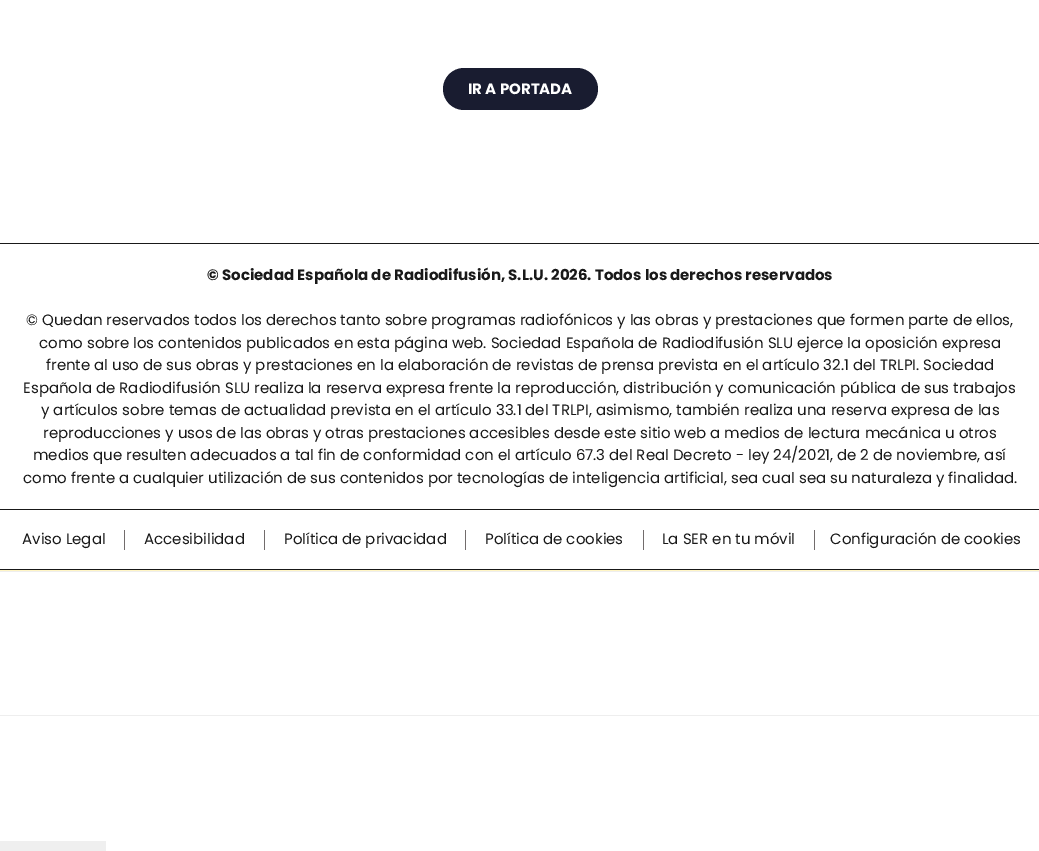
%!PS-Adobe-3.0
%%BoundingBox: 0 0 1039 851
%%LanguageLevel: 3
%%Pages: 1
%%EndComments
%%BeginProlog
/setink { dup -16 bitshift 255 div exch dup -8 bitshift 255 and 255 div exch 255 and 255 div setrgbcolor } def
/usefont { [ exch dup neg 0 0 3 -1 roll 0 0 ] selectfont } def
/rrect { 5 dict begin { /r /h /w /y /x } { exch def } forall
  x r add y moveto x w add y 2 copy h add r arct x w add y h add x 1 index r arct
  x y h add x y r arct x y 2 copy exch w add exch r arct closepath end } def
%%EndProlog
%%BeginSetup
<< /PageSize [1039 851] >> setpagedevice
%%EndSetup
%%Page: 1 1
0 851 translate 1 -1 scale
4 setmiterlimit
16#FFFFFF setink
0 0 1039 851 rectfill
16#191C30 setink
443 68 155 42 21 rrect fill
/Poppins-Bold 15 usefont
16#FFFFFF setink
468 94 moveto (IR A PORTADA) show
16#191919 setink
0 243 1039 1 rectfill
0 509 1039 1 rectfill
207 280 moveto (© Sociedad Española de Radiodifusión, S.L.U. 2026. Todos los derechos reservados) show
/Poppins-Regular 15 usefont
[
    [(© Quedan reservados todos los derechos tanto sobre programas radiofónicos y las obras y prestaciones que formen parte de ellos,) 26 325]
    [(como sobre los contenidos publicados en esta página web. Sociedad Española de Radiodifusión SLU ejerce la oposición expresa) 39 348]
    [(frente al uso de sus obras y prestaciones en la elaboración de revistas de prensa prevista en el artículo 32.1 del TRLPI. Sociedad) 46 370]
    [(Española de Radiodifusión SLU realiza la reserva expresa frente la reproducción, distribución y comunicación pública de sus trabajos) 23 393]
    [(y artículos sobre temas de actualidad prevista en el artículo 33.1 del TRLPI, asimismo, también realiza una reserva expresa de las) 41 415]
    [(reproducciones y usos de las obras y otras prestaciones accesibles desde este sitio web a medios de lectura mecánica u otros) 43 438]
    [(medios que resulten adecuados a tal fin de conformidad con el artículo 67.3 del Real Decreto - ley 24/2021, de 2 de noviembre, así) 33 460]
    [(como frente a cualquier utilización de sus contenidos por tecnologías de inteligencia artificial, sea cual sea su naturaleza y finalidad.) 23 483]
] { aload pop moveto show } forall
0 569 1039 1 rectfill
16#726C6C setink
124 530 1 20 rectfill
16#191919 setink
22 544 moveto (Aviso Legal) show
16#726C6C setink
264 530 1 20 rectfill
16#191919 setink
144 544 moveto (Accesibilidad) show
16#726C6C setink
465 530 1 20 rectfill
16#191919 setink
284 544 moveto (Política de privacidad) show
16#726C6C setink
643 530 1 20 rectfill
16#191919 setink
485 544 moveto (Política de cookies) show
16#726C6C setink
814 530 1 20 rectfill
16#191919 setink
662 544 moveto (La SER en tu móvil) show
830 544 moveto (Configuración de cookies) show
[
    [0 570 1039 1 16#FFF5C5]
    [0 571 1039 1 16#EEEEEE]
    [0 715 1039 1 16#EEEEEE]
    [0 841 106 10 16#EFEFEF]
] { aload pop setink rectfill } forall
showpage
%%EOF
